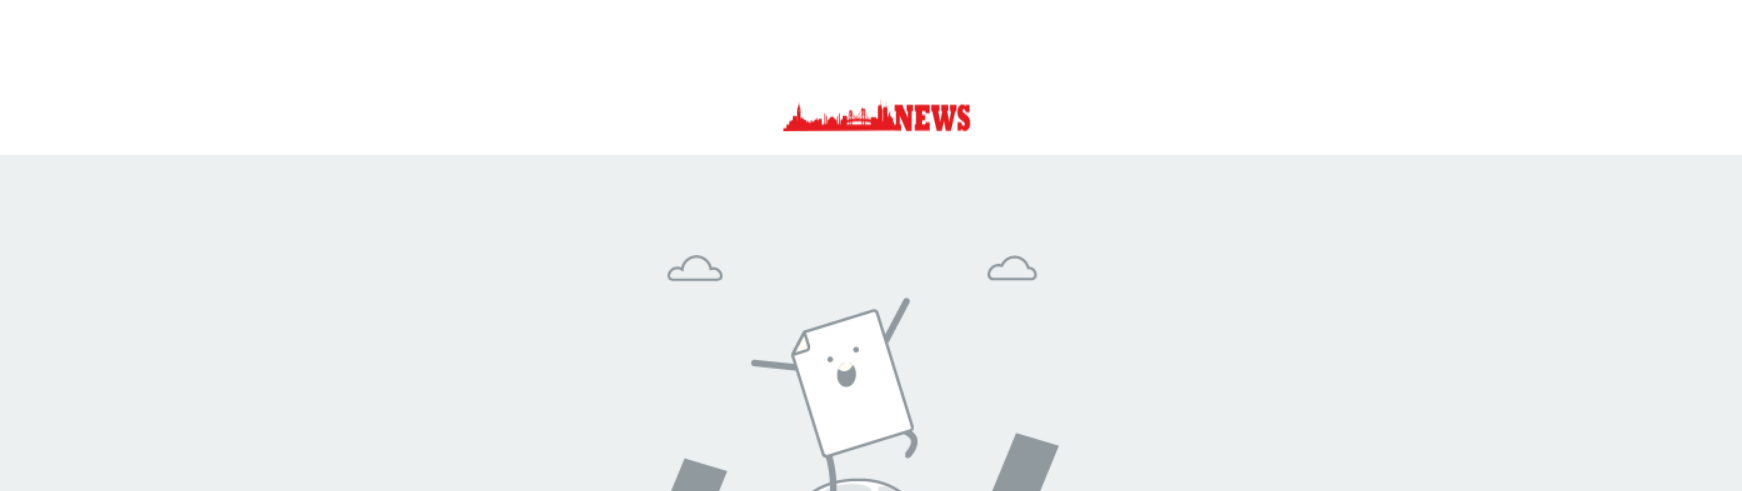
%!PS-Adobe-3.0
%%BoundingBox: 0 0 1742 491
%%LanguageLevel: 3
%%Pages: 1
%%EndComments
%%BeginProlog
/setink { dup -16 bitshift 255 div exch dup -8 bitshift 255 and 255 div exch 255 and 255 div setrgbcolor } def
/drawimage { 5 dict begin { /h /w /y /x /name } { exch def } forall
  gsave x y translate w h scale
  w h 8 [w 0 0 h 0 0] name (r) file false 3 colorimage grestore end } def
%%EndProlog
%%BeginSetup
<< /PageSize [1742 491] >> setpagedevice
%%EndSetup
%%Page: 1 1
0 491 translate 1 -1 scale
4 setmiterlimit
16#ECF0F1 setink
0 0 1742 491 rectfill
16#FFFFFF setink
0 0 1742 155 rectfill
(img1.raw) 782 99 189 33 drawimage
(img2.raw) 667 255 392 236 drawimage
showpage
%%EOF
